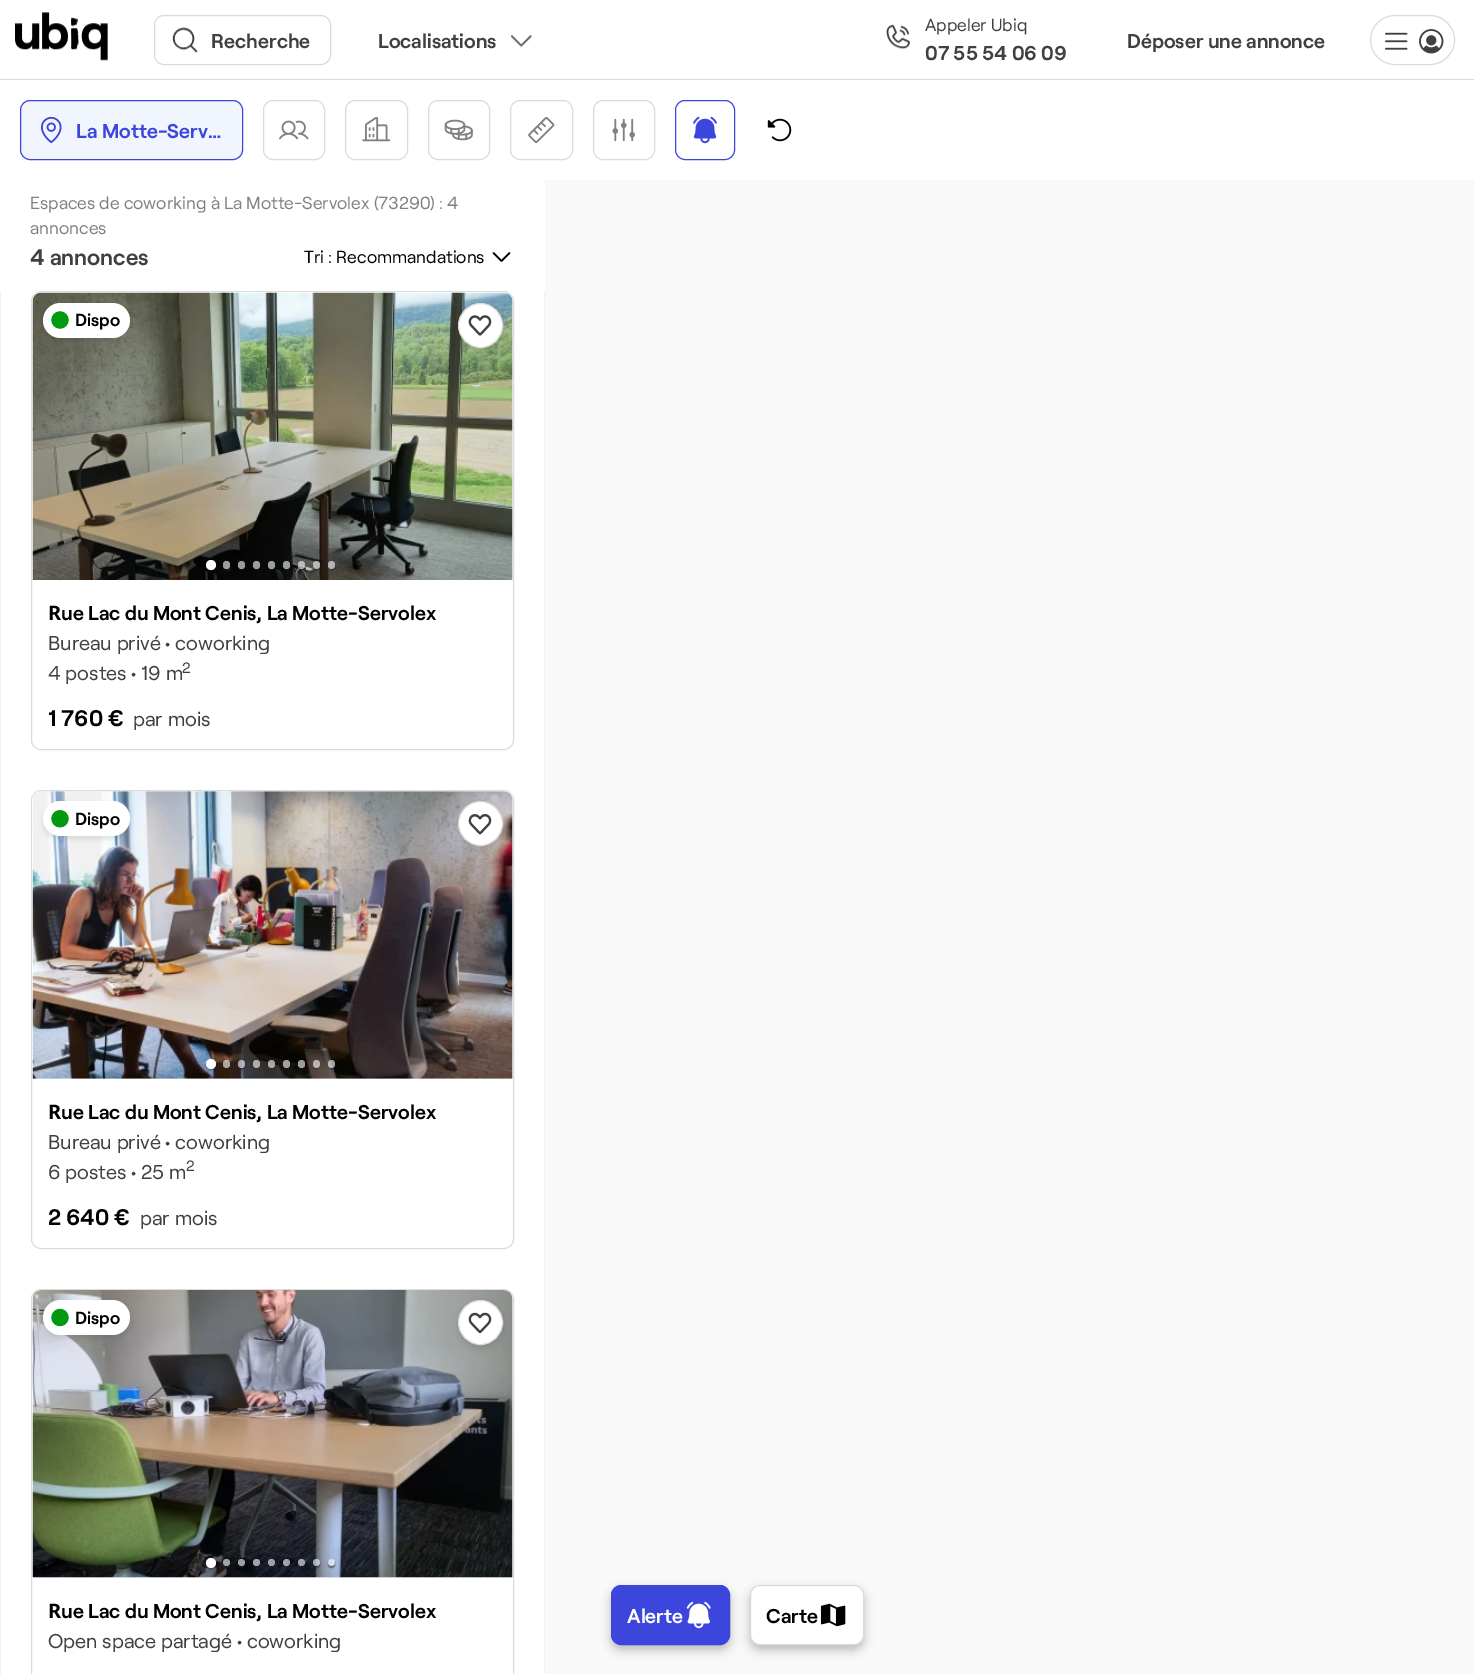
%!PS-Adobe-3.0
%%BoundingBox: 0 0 1474 1674
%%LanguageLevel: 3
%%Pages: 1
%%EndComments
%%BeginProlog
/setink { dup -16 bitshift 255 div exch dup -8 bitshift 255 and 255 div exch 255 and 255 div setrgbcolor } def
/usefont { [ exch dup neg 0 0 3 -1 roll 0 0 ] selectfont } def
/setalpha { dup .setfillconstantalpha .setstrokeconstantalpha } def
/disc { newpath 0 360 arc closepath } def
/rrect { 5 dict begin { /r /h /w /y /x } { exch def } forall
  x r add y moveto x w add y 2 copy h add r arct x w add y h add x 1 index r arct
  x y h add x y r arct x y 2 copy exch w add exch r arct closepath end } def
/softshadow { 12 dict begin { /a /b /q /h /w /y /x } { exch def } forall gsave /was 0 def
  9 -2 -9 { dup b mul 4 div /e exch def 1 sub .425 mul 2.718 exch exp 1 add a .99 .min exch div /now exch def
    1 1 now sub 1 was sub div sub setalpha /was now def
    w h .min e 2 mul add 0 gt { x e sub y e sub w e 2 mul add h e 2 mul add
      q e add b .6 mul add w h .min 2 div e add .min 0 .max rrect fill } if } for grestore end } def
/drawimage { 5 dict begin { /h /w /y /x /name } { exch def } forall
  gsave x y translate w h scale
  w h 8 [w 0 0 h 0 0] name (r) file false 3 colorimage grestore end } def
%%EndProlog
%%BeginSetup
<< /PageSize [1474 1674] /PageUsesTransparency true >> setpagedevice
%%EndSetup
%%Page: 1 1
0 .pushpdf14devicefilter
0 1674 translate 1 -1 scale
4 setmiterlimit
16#FFFFFF setink
0 0 1474 1674 rectfill
16#DBDBDB setink
0 79 1474 1 rectfill
(img1.raw) 15 12 93 49 drawimage
154.5 15.5 176 49 9.5 rrect stroke
(img2.raw) 172 27 26 26 drawimage
/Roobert-SemiBold 20 usefont
16#404040 setink
211 48 moveto (Recherche) show
378 48 moveto (Localisations) show
(img3.raw) 511 35 21 13 drawimage
(img4.raw) 886 24 24 26 drawimage
/Roobert-Regular 17.5 usefont
925 31 moveto (Appeler Ubiq) show
/Roobert-SemiBold 20 usefont
925 60 moveto (07 55 54 06 09) show
1127 48 moveto (Déposer une annonce) show
16#DBDBDB setink
1370.5 15.5 84 49 24.5 rrect stroke
(img5.raw) 1385 32 23 18 drawimage
(img6.raw) 1419 29 25 25 drawimage
16#F1F5FD setink
20.5 100.5 222 59 9.5 rrect gsave fill grestore
16#3C46DC setink
stroke
(img7.raw) 40 116 22 28 drawimage
76 138 moveto (La Motte-Serv…) show
16#DBDBDB setink
263.5 100.5 61 59 9.5 rrect stroke
(img8.raw) 279 120 30 20 drawimage
345.5 100.5 62 59 9.5 rrect stroke
(img9.raw) 362 116 29 26 drawimage
428.5 100.5 61 59 9.5 rrect stroke
(img10.raw) 444 119 29 22 drawimage
510.5 100.5 62 59 9.5 rrect stroke
(img11.raw) 528 116 27 28 drawimage
593.5 100.5 61 59 9.5 rrect stroke
(img12.raw) 612 118 23 24 drawimage
16#3C46DC setink
675.5 100.5 59 59 9.5 rrect stroke
(img13.raw) 693 116 24 28 drawimage
(img14.raw) 767 118 25 24 drawimage
16#F9F9FA setink
545 180 929 1494 rectfill
/Roobert-Regular 17.5 usefont
16#808080 setink
30 209 moveto (Espaces de coworking à La Motte-Servolex \(73290\) : 4) show
30 234 moveto (annonces) show
/Roobert-SemiBold 22.5 usefont
16#404040 setink
30 265 moveto (4 annonces) show
/Roobert-Regular 17.5 usefont
16#000000 setink
304 263 moveto (Tri : Recommandations) show
1.6 setlinewidth
1 setlinecap
1 setlinejoin
509.5 253 moveto 501.5 261 lineto 493.5 253 lineto stroke
16#F0F0F0 setink
544 291 1 1383 rectfill
0 291 1 1383 rectfill
16#DBDBDB setink
1 setlinewidth
0 setlinecap
0 setlinejoin
31.5 291.5 482 458 9.5 rrect stroke
16#F0F0F0 setink
42 293 moveto 504 293 lineto 509 293 513 297 513 302 curveto 513 580 lineto 33 580 lineto 33 302 lineto 33 297 37 293 42 293 curveto closepath fill
(img15.raw) 32 292 481 288 drawimage
16#1A2035 setink
206 561 10 10 5 0.5 0.5 softshadow
16#FFFFFF setink
211 565 5 disc fill
gsave
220 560 moveto 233 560 lineto 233 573 lineto 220 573 lineto closepath 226.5 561 moveto 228.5 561 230 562.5 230 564.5 curveto 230 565.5 lineto 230 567.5 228.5 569 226.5 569 curveto 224.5 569 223 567.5 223 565.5 curveto 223 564.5 lineto 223 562.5 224.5 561 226.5 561 curveto closepath eoclip newpath
16#1A2035 setink
223 563 7 7 3.5 0.5 0.5 softshadow
grestore
0.6 setalpha
223 561 7 8 3.5 rrect fill
gsave
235 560 moveto 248 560 lineto 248 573 lineto 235 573 lineto closepath 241.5 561 moveto 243.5 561 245 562.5 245 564.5 curveto 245 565.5 lineto 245 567.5 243.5 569 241.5 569 curveto 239.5 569 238 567.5 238 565.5 curveto 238 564.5 lineto 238 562.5 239.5 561 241.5 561 curveto closepath eoclip newpath
1 setalpha
16#1A2035 setink
238 563 7 7 3.5 0.5 0.5 softshadow
grestore
238 561 7 8 3.5 rrect fill
gsave
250 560 moveto 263 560 lineto 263 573 lineto 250 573 lineto closepath 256.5 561 moveto 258.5 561 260 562.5 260 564.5 curveto 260 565.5 lineto 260 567.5 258.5 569 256.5 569 curveto 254.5 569 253 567.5 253 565.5 curveto 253 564.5 lineto 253 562.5 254.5 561 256.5 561 curveto closepath eoclip newpath
1 setalpha
16#1A2035 setink
253 563 7 7 3.5 0.5 0.5 softshadow
grestore
253 561 7 8 3.5 rrect fill
gsave
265 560 moveto 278 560 lineto 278 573 lineto 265 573 lineto closepath 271.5 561 moveto 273.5 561 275 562.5 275 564.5 curveto 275 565.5 lineto 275 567.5 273.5 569 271.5 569 curveto 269.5 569 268 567.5 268 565.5 curveto 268 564.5 lineto 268 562.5 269.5 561 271.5 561 curveto closepath eoclip newpath
1 setalpha
16#1A2035 setink
268 563 7 7 3.5 0.5 0.5 softshadow
grestore
268 561 7 8 3.5 rrect fill
gsave
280 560 moveto 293 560 lineto 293 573 lineto 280 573 lineto closepath 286.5 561 moveto 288.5 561 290 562.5 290 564.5 curveto 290 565.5 lineto 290 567.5 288.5 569 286.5 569 curveto 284.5 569 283 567.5 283 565.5 curveto 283 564.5 lineto 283 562.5 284.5 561 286.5 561 curveto closepath eoclip newpath
1 setalpha
16#1A2035 setink
283 563 7 7 3.5 0.5 0.5 softshadow
grestore
283 561 7 8 3.5 rrect fill
gsave
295 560 moveto 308 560 lineto 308 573 lineto 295 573 lineto closepath 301.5 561 moveto 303.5 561 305 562.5 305 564.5 curveto 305 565.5 lineto 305 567.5 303.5 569 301.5 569 curveto 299.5 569 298 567.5 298 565.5 curveto 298 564.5 lineto 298 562.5 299.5 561 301.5 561 curveto closepath eoclip newpath
1 setalpha
16#1A2035 setink
298 563 7 7 3.5 0.5 0.5 softshadow
grestore
298 561 7 8 3.5 rrect fill
gsave
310 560 moveto 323 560 lineto 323 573 lineto 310 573 lineto closepath 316.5 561 moveto 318.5 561 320 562.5 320 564.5 curveto 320 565.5 lineto 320 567.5 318.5 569 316.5 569 curveto 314.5 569 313 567.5 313 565.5 curveto 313 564.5 lineto 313 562.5 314.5 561 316.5 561 curveto closepath eoclip newpath
1 setalpha
16#1A2035 setink
313 563 7 7 3.5 0.5 0.5 softshadow
grestore
313 561 7 8 3.5 rrect fill
gsave
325 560 moveto 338 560 lineto 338 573 lineto 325 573 lineto closepath 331.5 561 moveto 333.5 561 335 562.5 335 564.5 curveto 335 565.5 lineto 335 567.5 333.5 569 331.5 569 curveto 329.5 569 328 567.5 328 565.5 curveto 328 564.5 lineto 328 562.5 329.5 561 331.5 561 curveto closepath eoclip newpath
1 setalpha
16#1A2035 setink
328 563 7 7 3.5 0.5 0.5 softshadow
grestore
328 561 7 8 3.5 rrect fill
1 setalpha
16#000000 setink
43 305 87 35 17.5 2.5 0.1 softshadow
16#FFFFFF setink
43 303 87 35 17.5 rrect fill
(img16.raw) 51 311 18 18 drawimage
/Roobert-SemiBold 17.5 usefont
16#000000 setink
75 326 moveto (Dispo) show
458 305 45 45 22.5 2.5 0.1 softshadow
16#FFFFFF setink
480.5 325.5 22 disc gsave fill grestore
16#DBDBDB setink
stroke
(img17.raw) 468 315 24 21 drawimage
/NotoSans-Bold 20 usefont
16#000000 setink
48 620 moveto (R) show
/Roobert-SemiBold 20 usefont
61 620 moveto (ue Lac du Mont Cenis, La Motte-Servolex) show
/Roobert-Regular 20 usefont
16#404040 setink
48 650 moveto (Bureau privé • coworking) show
48 680 moveto (4 postes • 19 m) show
/Roobert-Regular 15 usefont
182 673 moveto (2) show
/Roobert-SemiBold 22.5 usefont
16#000000 setink
48 726 moveto (1 760 €) show
/Roobert-Regular 20 usefont
16#404040 setink
133 726 moveto (par mois) show
16#DBDBDB setink
31.5 790.5 482 458 9.5 rrect stroke
16#F0F0F0 setink
42 791 moveto 504 791 lineto 509 791 513 795 513 800 curveto 513 1079 lineto 33 1079 lineto 33 800 lineto 33 795 37 791 42 791 curveto closepath fill
(img18.raw) 32 791 481 288 drawimage
16#1A2035 setink
206 1060 10 10 5 0.5 0.5 softshadow
16#FFFFFF setink
211 1064 5 disc fill
gsave
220 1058 moveto 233 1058 lineto 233 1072 lineto 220 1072 lineto closepath 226.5 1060 moveto 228.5 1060 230 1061.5 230 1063.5 curveto 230 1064.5 lineto 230 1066.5 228.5 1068 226.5 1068 curveto 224.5 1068 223 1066.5 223 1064.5 curveto 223 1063.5 lineto 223 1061.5 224.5 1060 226.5 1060 curveto closepath eoclip newpath
16#1A2035 setink
223 1061 7 8 3.5 0.5 0.5 softshadow
grestore
0.6 setalpha
223 1060 7 8 3.5 rrect fill
gsave
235 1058 moveto 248 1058 lineto 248 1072 lineto 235 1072 lineto closepath 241.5 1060 moveto 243.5 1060 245 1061.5 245 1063.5 curveto 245 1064.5 lineto 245 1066.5 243.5 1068 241.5 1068 curveto 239.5 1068 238 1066.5 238 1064.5 curveto 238 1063.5 lineto 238 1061.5 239.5 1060 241.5 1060 curveto closepath eoclip newpath
1 setalpha
16#1A2035 setink
238 1061 7 8 3.5 0.5 0.5 softshadow
grestore
238 1060 7 8 3.5 rrect fill
gsave
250 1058 moveto 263 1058 lineto 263 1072 lineto 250 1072 lineto closepath 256.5 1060 moveto 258.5 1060 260 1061.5 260 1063.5 curveto 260 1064.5 lineto 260 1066.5 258.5 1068 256.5 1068 curveto 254.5 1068 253 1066.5 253 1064.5 curveto 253 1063.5 lineto 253 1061.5 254.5 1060 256.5 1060 curveto closepath eoclip newpath
1 setalpha
16#1A2035 setink
253 1061 7 8 3.5 0.5 0.5 softshadow
grestore
253 1060 7 8 3.5 rrect fill
gsave
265 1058 moveto 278 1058 lineto 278 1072 lineto 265 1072 lineto closepath 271.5 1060 moveto 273.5 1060 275 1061.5 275 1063.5 curveto 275 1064.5 lineto 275 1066.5 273.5 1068 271.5 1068 curveto 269.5 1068 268 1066.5 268 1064.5 curveto 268 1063.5 lineto 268 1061.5 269.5 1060 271.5 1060 curveto closepath eoclip newpath
1 setalpha
16#1A2035 setink
268 1061 7 8 3.5 0.5 0.5 softshadow
grestore
268 1060 7 8 3.5 rrect fill
gsave
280 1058 moveto 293 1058 lineto 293 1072 lineto 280 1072 lineto closepath 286.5 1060 moveto 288.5 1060 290 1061.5 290 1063.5 curveto 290 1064.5 lineto 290 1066.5 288.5 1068 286.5 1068 curveto 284.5 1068 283 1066.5 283 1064.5 curveto 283 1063.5 lineto 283 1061.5 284.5 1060 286.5 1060 curveto closepath eoclip newpath
1 setalpha
16#1A2035 setink
283 1061 7 8 3.5 0.5 0.5 softshadow
grestore
283 1060 7 8 3.5 rrect fill
gsave
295 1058 moveto 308 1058 lineto 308 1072 lineto 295 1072 lineto closepath 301.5 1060 moveto 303.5 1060 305 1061.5 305 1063.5 curveto 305 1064.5 lineto 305 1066.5 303.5 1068 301.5 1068 curveto 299.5 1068 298 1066.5 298 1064.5 curveto 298 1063.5 lineto 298 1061.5 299.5 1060 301.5 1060 curveto closepath eoclip newpath
1 setalpha
16#1A2035 setink
298 1061 7 8 3.5 0.5 0.5 softshadow
grestore
298 1060 7 8 3.5 rrect fill
gsave
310 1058 moveto 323 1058 lineto 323 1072 lineto 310 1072 lineto closepath 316.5 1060 moveto 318.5 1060 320 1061.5 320 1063.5 curveto 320 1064.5 lineto 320 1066.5 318.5 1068 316.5 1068 curveto 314.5 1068 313 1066.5 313 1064.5 curveto 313 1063.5 lineto 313 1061.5 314.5 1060 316.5 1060 curveto closepath eoclip newpath
1 setalpha
16#1A2035 setink
313 1061 7 8 3.5 0.5 0.5 softshadow
grestore
313 1060 7 8 3.5 rrect fill
gsave
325 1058 moveto 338 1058 lineto 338 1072 lineto 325 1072 lineto closepath 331.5 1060 moveto 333.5 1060 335 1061.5 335 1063.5 curveto 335 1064.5 lineto 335 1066.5 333.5 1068 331.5 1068 curveto 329.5 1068 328 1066.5 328 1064.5 curveto 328 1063.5 lineto 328 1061.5 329.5 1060 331.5 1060 curveto closepath eoclip newpath
1 setalpha
16#1A2035 setink
328 1061 7 8 3.5 0.5 0.5 softshadow
grestore
328 1060 7 8 3.5 rrect fill
1 setalpha
16#000000 setink
43 804 87 35 17.5 2.5 0.1 softshadow
16#FFFFFF setink
43 801 87 35 17.5 rrect fill
(img19.raw) 51 810 18 18 drawimage
/Roobert-SemiBold 17.5 usefont
16#000000 setink
75 825 moveto (Dispo) show
458 804 45 45 22.5 2.5 0.1 softshadow
16#FFFFFF setink
480.5 823.5 22 disc gsave fill grestore
16#DBDBDB setink
stroke
(img20.raw) 468 814 24 21 drawimage
/NotoSans-Bold 20 usefont
16#000000 setink
48 1119 moveto (R) show
/Roobert-SemiBold 20 usefont
61 1119 moveto (ue Lac du Mont Cenis, La Motte-Servolex) show
/Roobert-Regular 20 usefont
16#404040 setink
48 1149 moveto (Bureau privé • coworking) show
48 1179 moveto (6 postes • 25 m) show
/Roobert-Regular 15 usefont
186 1171 moveto (2) show
/Roobert-SemiBold 22.5 usefont
16#000000 setink
48 1225 moveto (2 640 €) show
/Roobert-Regular 20 usefont
16#404040 setink
140 1225 moveto (par mois) show
16#DBDBDB setink
31.5 1289.5 482 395 9.5 rrect stroke
16#F0F0F0 setink
42 1290 moveto 504 1290 lineto 509 1290 513 1294 513 1299 curveto 513 1578 lineto 33 1578 lineto 33 1299 lineto 33 1294 37 1290 42 1290 curveto closepath fill
(img21.raw) 32 1290 481 288 drawimage
16#1A2035 setink
206 1559 10 10 5 0.5 0.5 softshadow
16#FFFFFF setink
211 1563 5 disc fill
gsave
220 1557 moveto 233 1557 lineto 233 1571 lineto 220 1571 lineto closepath 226.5 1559 moveto 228.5 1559 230 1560.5 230 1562.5 curveto 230 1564.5 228.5 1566 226.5 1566 curveto 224.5 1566 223 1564.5 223 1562.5 curveto 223 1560.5 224.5 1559 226.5 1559 curveto closepath eoclip newpath
16#1A2035 setink
223 1560 7 8 3.5 0.5 0.5 softshadow
grestore
0.6 setalpha
226.5 1562.5 3.5 disc fill
gsave
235 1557 moveto 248 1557 lineto 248 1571 lineto 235 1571 lineto closepath 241.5 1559 moveto 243.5 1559 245 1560.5 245 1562.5 curveto 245 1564.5 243.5 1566 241.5 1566 curveto 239.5 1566 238 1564.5 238 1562.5 curveto 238 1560.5 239.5 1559 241.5 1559 curveto closepath eoclip newpath
1 setalpha
16#1A2035 setink
238 1560 7 8 3.5 0.5 0.5 softshadow
grestore
241.5 1562.5 3.5 disc fill
gsave
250 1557 moveto 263 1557 lineto 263 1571 lineto 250 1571 lineto closepath 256.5 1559 moveto 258.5 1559 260 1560.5 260 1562.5 curveto 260 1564.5 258.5 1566 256.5 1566 curveto 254.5 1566 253 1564.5 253 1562.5 curveto 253 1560.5 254.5 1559 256.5 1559 curveto closepath eoclip newpath
1 setalpha
16#1A2035 setink
253 1560 7 8 3.5 0.5 0.5 softshadow
grestore
256.5 1562.5 3.5 disc fill
271.5 1562.5 3.5 disc fill
286.5 1562.5 3.5 disc fill
gsave
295 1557 moveto 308 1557 lineto 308 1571 lineto 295 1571 lineto closepath 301.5 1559 moveto 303.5 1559 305 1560.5 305 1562.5 curveto 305 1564.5 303.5 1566 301.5 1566 curveto 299.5 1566 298 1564.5 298 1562.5 curveto 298 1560.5 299.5 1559 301.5 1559 curveto closepath eoclip newpath
1 setalpha
16#1A2035 setink
298 1560 7 8 3.5 0.5 0.5 softshadow
grestore
301.5 1562.5 3.5 disc fill
gsave
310 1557 moveto 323 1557 lineto 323 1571 lineto 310 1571 lineto closepath 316.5 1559 moveto 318.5 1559 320 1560.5 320 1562.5 curveto 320 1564.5 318.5 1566 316.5 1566 curveto 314.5 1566 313 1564.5 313 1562.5 curveto 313 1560.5 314.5 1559 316.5 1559 curveto closepath eoclip newpath
1 setalpha
16#1A2035 setink
313 1560 7 8 3.5 0.5 0.5 softshadow
grestore
316.5 1562.5 3.5 disc fill
gsave
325 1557 moveto 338 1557 lineto 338 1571 lineto 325 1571 lineto closepath 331.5 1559 moveto 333.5 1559 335 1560.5 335 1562.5 curveto 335 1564.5 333.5 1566 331.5 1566 curveto 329.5 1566 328 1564.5 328 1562.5 curveto 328 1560.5 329.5 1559 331.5 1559 curveto closepath eoclip newpath
1 setalpha
16#1A2035 setink
328 1560 7 8 3.5 0.5 0.5 softshadow
grestore
331.5 1562.5 3.5 disc fill
1 setalpha
16#000000 setink
43 1303 87 35 17.5 2.5 0.1 softshadow
16#FFFFFF setink
43 1300 87 35 17.5 rrect fill
(img22.raw) 51 1308 18 19 drawimage
/Roobert-SemiBold 17.5 usefont
16#000000 setink
75 1324 moveto (Dispo) show
458 1303 45 45 22.5 2.5 0.1 softshadow
16#FFFFFF setink
480.5 1322.5 22 disc gsave fill grestore
16#DBDBDB setink
stroke
(img23.raw) 468 1312 24 22 drawimage
/NotoSans-Bold 20 usefont
16#000000 setink
48 1618 moveto (R) show
/Roobert-SemiBold 20 usefont
61 1618 moveto (ue Lac du Mont Cenis, La Motte-Servolex) show
/Roobert-Regular 20 usefont
16#404040 setink
48 1648 moveto (Open space partagé • coworking) show
16#000000 setink
611 1590 119 60 10 5 0.25 softshadow
16#3C46DC setink
611.5 1585.5 118 59 9.5 rrect gsave fill grestore
stroke
/Roobert-SemiBold 20 usefont
16#FFFFFF setink
627 1623 moveto (Alerte) show
(img24.raw) 686 1601 25 28 drawimage
16#000000 setink
750 1590 114 60 10 5 0.25 softshadow
16#FFFFFF setink
750.5 1585.5 113 59 9.5 rrect gsave fill grestore
16#DBDBDB setink
stroke
16#000000 setink
766 1623 moveto (Carte) show
(img25.raw) 820 1603 26 24 drawimage
.poppdf14devicefilter showpage
%%EOF
